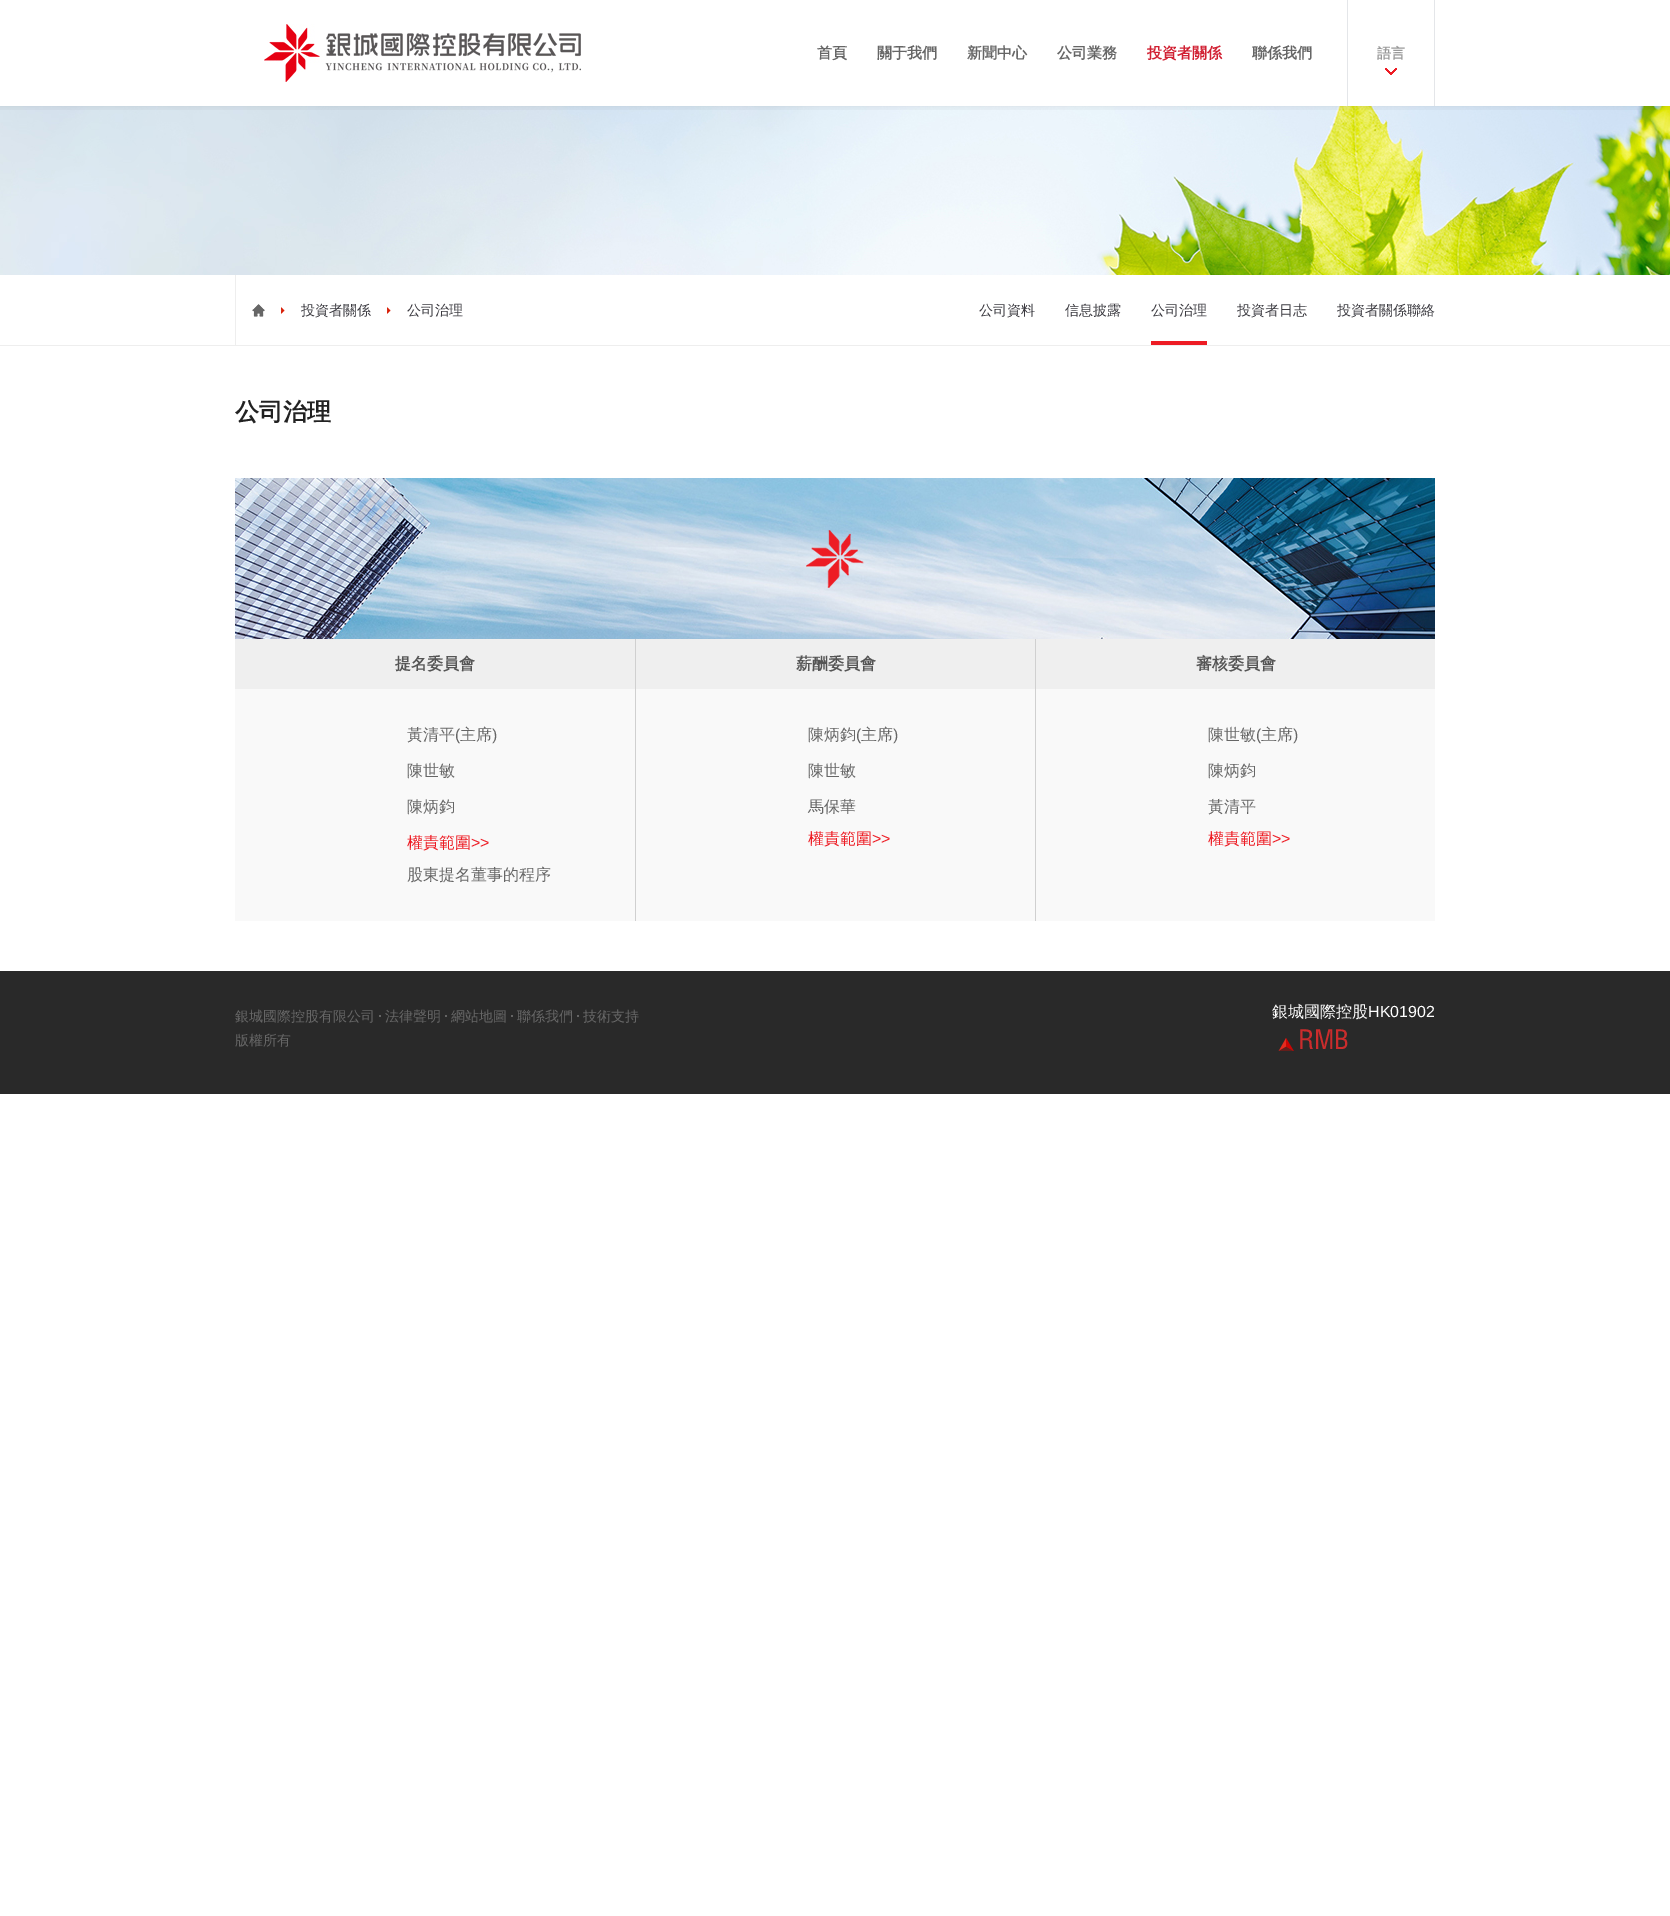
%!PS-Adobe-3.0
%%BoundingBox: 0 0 1670 1916
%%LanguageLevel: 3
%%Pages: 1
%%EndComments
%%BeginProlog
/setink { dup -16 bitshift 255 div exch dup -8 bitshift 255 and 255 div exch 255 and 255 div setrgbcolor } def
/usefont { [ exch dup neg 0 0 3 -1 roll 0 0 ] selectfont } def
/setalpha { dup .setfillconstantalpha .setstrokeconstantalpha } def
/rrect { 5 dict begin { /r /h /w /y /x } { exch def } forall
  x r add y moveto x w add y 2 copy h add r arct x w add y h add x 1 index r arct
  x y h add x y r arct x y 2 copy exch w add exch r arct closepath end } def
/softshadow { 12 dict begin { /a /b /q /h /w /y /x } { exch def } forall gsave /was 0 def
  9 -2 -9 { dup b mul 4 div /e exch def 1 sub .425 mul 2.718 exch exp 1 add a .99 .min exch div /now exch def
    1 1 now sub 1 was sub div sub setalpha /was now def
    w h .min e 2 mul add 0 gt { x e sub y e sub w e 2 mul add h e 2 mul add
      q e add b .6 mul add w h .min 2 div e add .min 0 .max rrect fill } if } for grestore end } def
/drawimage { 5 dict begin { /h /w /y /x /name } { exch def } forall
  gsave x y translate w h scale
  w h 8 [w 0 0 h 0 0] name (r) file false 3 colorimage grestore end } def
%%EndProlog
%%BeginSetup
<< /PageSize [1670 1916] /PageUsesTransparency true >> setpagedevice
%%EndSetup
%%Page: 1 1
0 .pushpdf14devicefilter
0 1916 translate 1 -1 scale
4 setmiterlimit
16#FFFFFF setink
0 0 1670 1916 rectfill
(img3.raw) 0 106 1670 169 drawimage
gsave
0 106 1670 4 rectclip
16#000000 setink
-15 0 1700 106 0 5 0.1 softshadow
grestore
(img1.raw) 264 24 317 58 drawimage
/WenQuanYiZenHei-Bold 15 usefont
16#666666 setink
[
    [(首頁) 817 58]
    [(關于我們) 877 58]
    [(新聞中心) 967 58]
    [(公司業務) 1057 58]
] { aload pop moveto show } forall
16#D12032 setink
1147 58 moveto (投資者關係) show
16#666666 setink
1252 58 moveto (聯係我們) show
(img2.raw) 1385 68 12 7 drawimage
16#E4E6E9 setink
1434 0 1 106 rectfill
1347 0 1 106 rectfill
/WenQuanYiZenHei-Bold 14 usefont
16#999999 setink
1377 58 moveto (語言) show
16#EEEEEE setink
0 345 1670 1 rectfill
(img4.raw) 252 304 13 13 drawimage
235 275 1 70 rectfill
(img5.raw) 281 307 4 7 drawimage
/WenQuanYiZenHei-Medium 14 usefont
16#3B3A40 setink
301 315 moveto (投資者關係) show
(img5.raw) 387 307 4 7 drawimage
[
    [(公司治理) 407 315]
    [(公司資料) 979 315]
    [(信息披露) 1065 315]
    [(公司治理) 1151 315]
    [(投資者日志) 1237 315]
    [(投資者關係聯絡) 1337 315]
] { aload pop moveto show } forall
16#ED1C24 setink
1151 341 56 4 rectfill
/WenQuanYiZenHei-Bold 24 usefont
16#222222 setink
235 420 moveto (公司治理) show
(img6.raw) 235 478 1200 161 drawimage
(img7.raw) 806 530 58 58 drawimage
16#F9F9F9 setink
235 689 1200 232 rectfill
16#EFEFEF setink
235 639 400 50 rectfill
/WenQuanYiZenHei-Bold 16 usefont
16#555555 setink
395 669 moveto (提名委員會) show
/WenQuanYiZenHei-Medium 16 usefont
16#666666 setink
407 740 moveto (黃清平) show
/LiberationSans-Regular 16 usefont
455 740 moveto (\() show
/WenQuanYiZenHei-Medium 16 usefont
460 740 moveto (主席) show
/LiberationSans-Regular 16 usefont
492 740 moveto (\)) show
/WenQuanYiZenHei-Medium 16 usefont
407 776 moveto (陳世敏) show
407 812 moveto (陳炳鈞) show
16#ED1C24 setink
407 848 moveto (權責範圍) show
/LiberationSans-Regular 16 usefont
471 848 moveto (>>) show
/WenQuanYiZenHei-Medium 16 usefont
16#666666 setink
407 880 moveto (股東提名董事的程序) show
16#D0D0D0 setink
635 639 1 282 rectfill
16#EFEFEF setink
636 639 399 50 rectfill
/WenQuanYiZenHei-Bold 16 usefont
16#555555 setink
796 669 moveto (薪酬委員會) show
/WenQuanYiZenHei-Medium 16 usefont
16#666666 setink
808 740 moveto (陳炳鈞) show
/LiberationSans-Regular 16 usefont
856 740 moveto (\() show
/WenQuanYiZenHei-Medium 16 usefont
861 740 moveto (主席) show
/LiberationSans-Regular 16 usefont
893 740 moveto (\)) show
/WenQuanYiZenHei-Medium 16 usefont
808 776 moveto (陳世敏) show
808 812 moveto (馬保華) show
16#ED1C24 setink
808 844 moveto (權責範圍) show
/LiberationSans-Regular 16 usefont
872 844 moveto (>>) show
16#D0D0D0 setink
1035 639 1 282 rectfill
16#EFEFEF setink
1036 639 399 50 rectfill
/WenQuanYiZenHei-Bold 16 usefont
16#555555 setink
1196 669 moveto (審核委員會) show
/WenQuanYiZenHei-Medium 16 usefont
16#666666 setink
1208 740 moveto (陳世敏) show
/LiberationSans-Regular 16 usefont
1256 740 moveto (\() show
/WenQuanYiZenHei-Medium 16 usefont
1261 740 moveto (主席) show
/LiberationSans-Regular 16 usefont
1293 740 moveto (\)) show
/WenQuanYiZenHei-Medium 16 usefont
1208 776 moveto (陳炳鈞) show
1208 812 moveto (黃清平) show
16#ED1C24 setink
1208 844 moveto (權責範圍) show
/LiberationSans-Regular 16 usefont
1272 844 moveto (>>) show
16#292929 setink
0 971 1670 123 rectfill
/WenQuanYiZenHei-Medium 14 usefont
16#666666 setink
235 1021 moveto (銀城國際控股有限公司) show
16#646464 setink
379 1015 2 2 rectfill
16#666666 setink
385 1021 moveto (法律聲明) show
16#646464 setink
445 1015 2 2 rectfill
16#666666 setink
451 1021 moveto (網站地圖) show
16#646464 setink
511 1015 2 2 rectfill
16#666666 setink
517 1021 moveto (聯係我們) show
16#646464 setink
577 1015 2 2 rectfill
16#666666 setink
583 1021 moveto (技術支持) show
235 1045 moveto (版權所有) show
/WenQuanYiZenHei-Medium 16 usefont
16#FFFFFF setink
1272 1017 moveto (銀城國際控股) show
/LiberationSans-Regular 16 usefont
1368 1017 moveto (HK01902) show
(img8.raw) 1278 1038 16 13 drawimage
/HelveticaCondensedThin-Thin 30 usefont
16#CB2C2C setink
1298 1049 moveto -1 0 (RMB) ashow
.poppdf14devicefilter showpage
%%EOF
